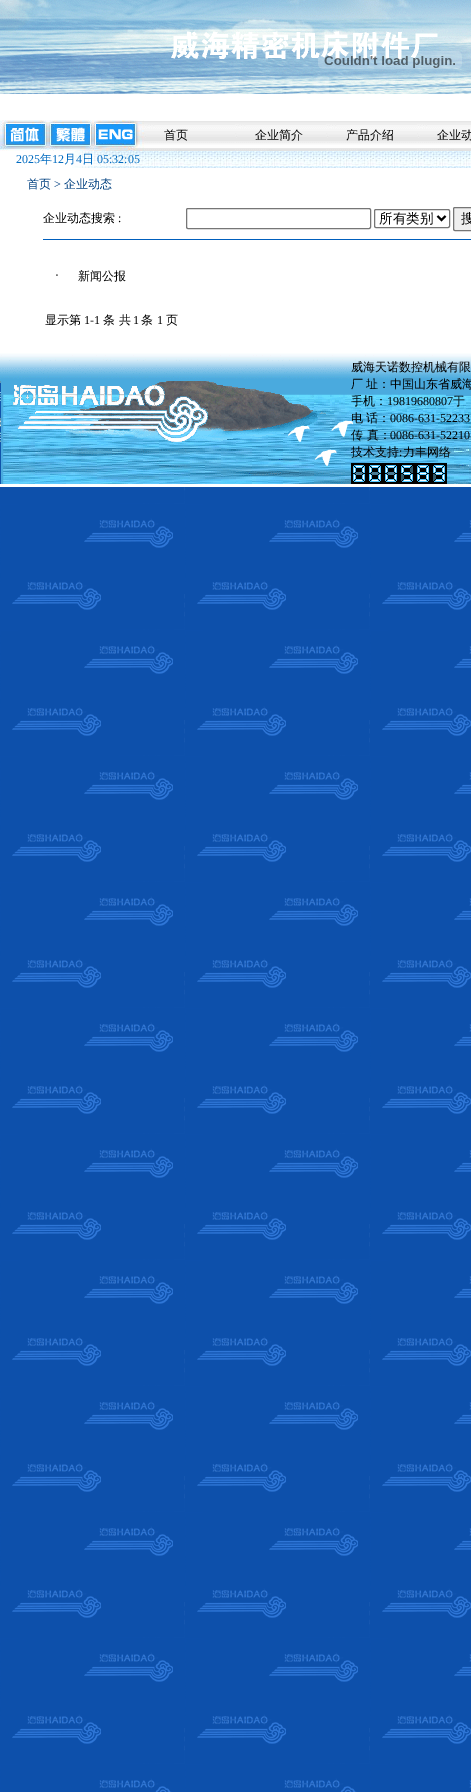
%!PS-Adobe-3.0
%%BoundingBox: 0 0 471 1792
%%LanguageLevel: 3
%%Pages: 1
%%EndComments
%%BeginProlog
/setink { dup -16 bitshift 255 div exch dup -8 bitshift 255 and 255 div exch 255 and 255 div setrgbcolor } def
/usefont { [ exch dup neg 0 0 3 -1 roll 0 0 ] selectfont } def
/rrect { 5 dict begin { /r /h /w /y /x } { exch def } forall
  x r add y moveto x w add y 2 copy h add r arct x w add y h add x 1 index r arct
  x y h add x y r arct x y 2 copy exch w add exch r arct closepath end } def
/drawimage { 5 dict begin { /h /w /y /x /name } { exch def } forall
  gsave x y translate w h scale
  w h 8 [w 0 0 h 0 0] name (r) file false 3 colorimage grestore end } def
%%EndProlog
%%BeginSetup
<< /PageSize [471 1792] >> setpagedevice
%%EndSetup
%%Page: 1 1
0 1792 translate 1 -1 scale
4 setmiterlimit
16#FFFFFF setink
0 0 471 1792 rectfill
(img1.raw) 0 487 471 1305 drawimage
(img2.raw) 0 0 471 94 drawimage
(img3.raw) 318 51 144 18 drawimage
(img4.raw) 0 120 144 31 drawimage
(img5.raw) 144 121 91 30 drawimage
/WenQuanYiZenHei-Medium 12 usefont
16#000000 setink
164 139 moveto (首页) show
(img5.raw) 235 121 91 30 drawimage
255 139 moveto (企业简介) show
(img5.raw) 326 121 91 30 drawimage
346 139 moveto (产品介绍) show
(img6.raw) 417 121 54 30 drawimage
437 139 moveto (企业动) show
(img7.raw) 72 151 399 17 drawimage
/LiberationSerif-Regular 12 usefont
16#006AC0 setink
16 163 moveto (2025) show
/WenQuanYiZenHei-Medium 12 usefont
40 163 moveto (年) show
/LiberationSerif-Regular 12 usefont
52 163 moveto (12) show
/WenQuanYiZenHei-Medium 12 usefont
64 163 moveto (月) show
/LiberationSerif-Regular 12 usefont
76 163 moveto (4) show
/WenQuanYiZenHei-Medium 12 usefont
82 163 moveto (日) show
/LiberationSerif-Regular 12 usefont
97 163 moveto (05:32:05) show
/WenQuanYiZenHei-Medium 12 usefont
16#004080 setink
27 188 moveto (首页) show
/LiberationSerif-Regular 12 usefont
54 188 moveto (>) show
/WenQuanYiZenHei-Medium 12 usefont
64 188 moveto (企业动态) show
16#000000 setink
43 222 moveto (企业动态搜索) show
/LiberationSerif-Regular 12 usefont
118 222 moveto (:) show
16#767676 setink
186.5 208.5 184 20 1.5 rrect stroke
374.5 209.5 75 18 1.5 rrect stroke
16#000000 setink
2 setlinewidth
437.5 216 moveto 441.5 220 lineto 445.5 216 lineto stroke
/WenQuanYiZenHei-Medium 13.5 usefont
379 223 moveto (所有类别) show
16#EFEFEF setink
453.5 207.5 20 23 1.5 rrect gsave fill grestore
16#767676 setink
1 setlinewidth
stroke
16#000000 setink
461 223 moveto (搜) show
16#005FBD setink
43 239 428 1 rectfill
/LiberationSerif-Regular 12 usefont
16#000000 setink
55 279 moveto (·) show
/WenQuanYiZenHei-Medium 12 usefont
78 280 moveto (新闻公报) show
45 324 moveto (显示第) show
/LiberationSerif-Regular 12 usefont
84 324 moveto (1-1) show
/WenQuanYiZenHei-Medium 12 usefont
103 324 moveto (条 共) show
/LiberationSerif-Regular 12 usefont
133 324 moveto (1) show
/WenQuanYiZenHei-Medium 12 usefont
141 324 moveto (条) show
/LiberationSerif-Regular 12 usefont
157 324 moveto (1) show
/WenQuanYiZenHei-Medium 12 usefont
166 324 moveto (页) show
(img8.raw) 0 334 471 152 drawimage
351 371 moveto (威海天诺数控机械有限) show
351 388 moveto -1 0 32 (厂 址：中国山东省威海) widthshow
351 405 moveto (手机：) show
/LiberationSerif-Regular 12 usefont
387 405 moveto (19819680807) show
/WenQuanYiZenHei-Medium 12 usefont
453 405 moveto (于) show
351 422 moveto -1 0 32 (电 话：) widthshow
/LiberationSerif-Regular 12 usefont
390 422 moveto (0086-631-52233) show
/WenQuanYiZenHei-Medium 12 usefont
351 439 moveto (传 真：) show
/LiberationSerif-Regular 12 usefont
390 439 moveto (0086-631-52210) show
/WenQuanYiZenHei-Medium 12 usefont
351 456 moveto (技术支持 力丰网络) show
/LiberationSerif-Regular 12 usefont
399 456 moveto (:) show
(img9.raw) 351 463 16 21 drawimage
(img9.raw) 367 463 16 21 drawimage
(img9.raw) 383 463 16 21 drawimage
(img10.raw) 399 463 16 21 drawimage
(img11.raw) 415 463 16 21 drawimage
(img12.raw) 431 463 16 21 drawimage
showpage
%%EOF
